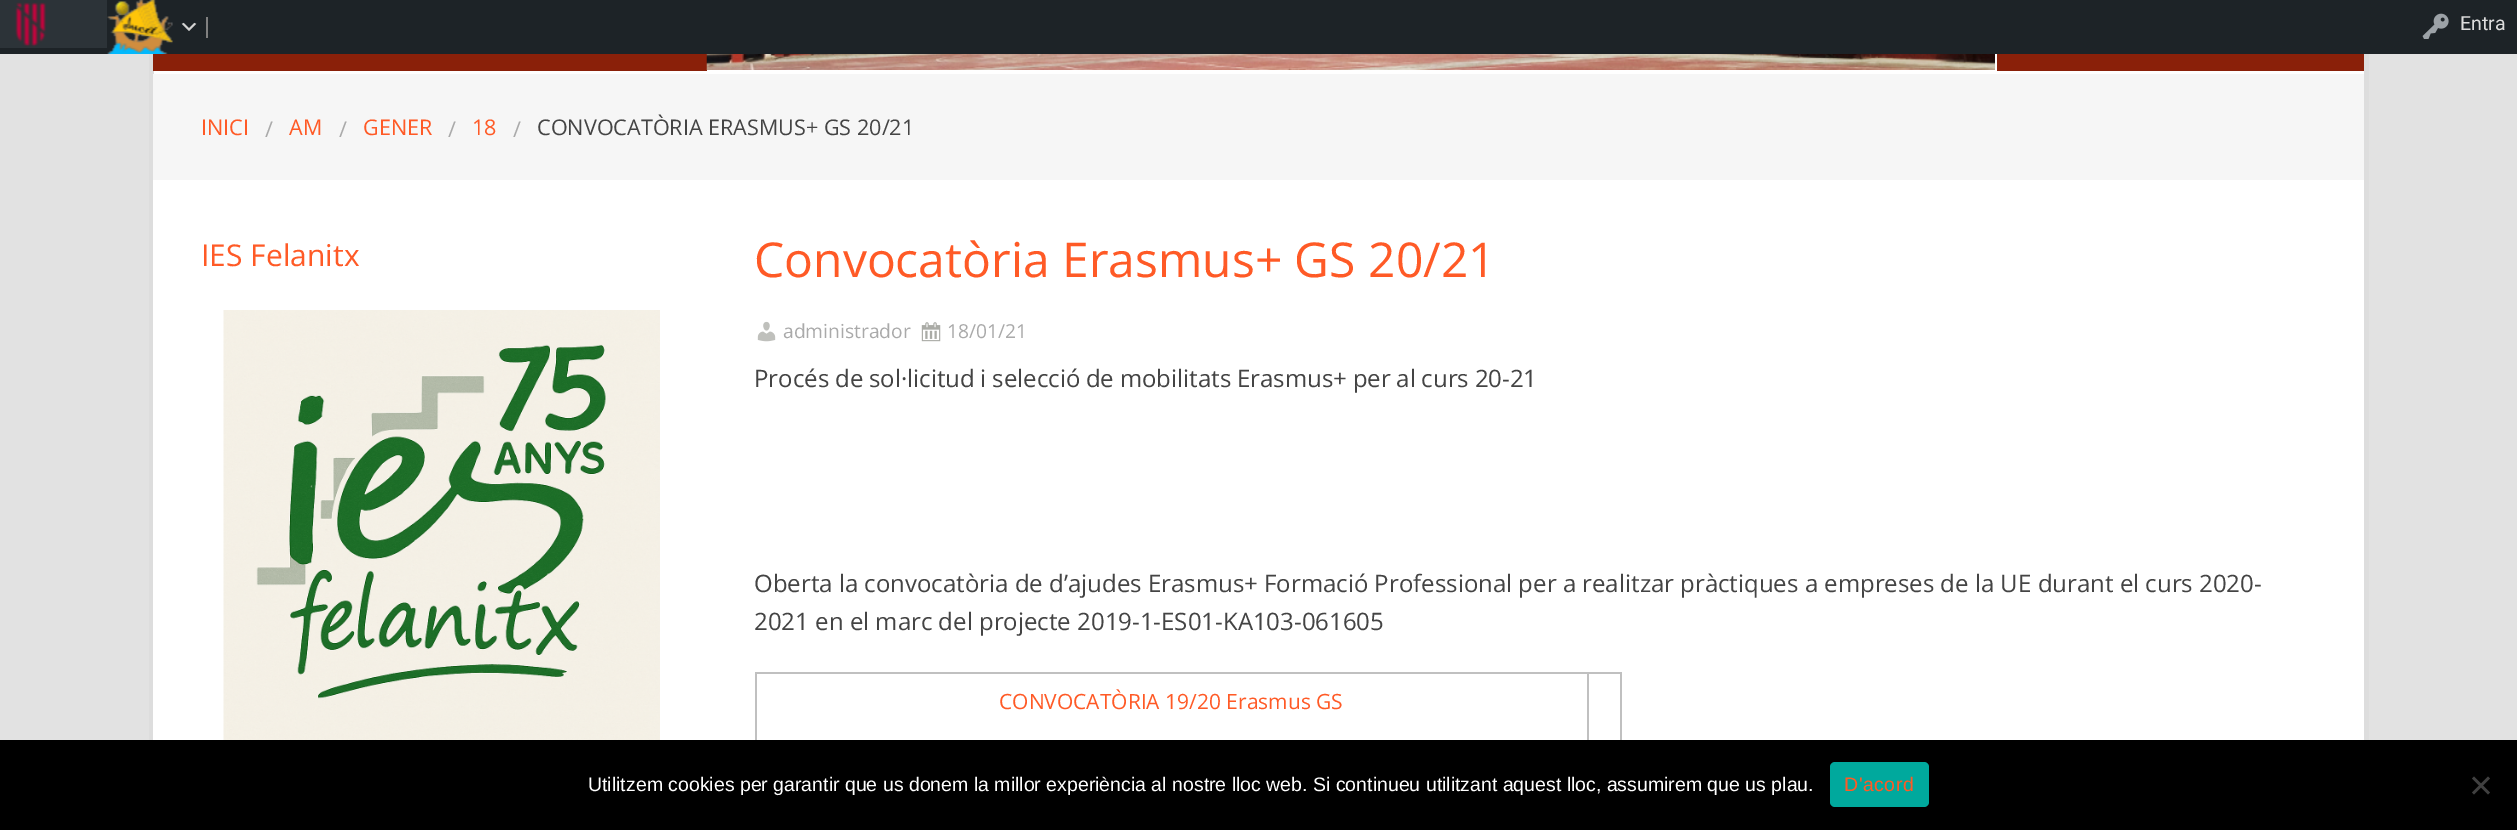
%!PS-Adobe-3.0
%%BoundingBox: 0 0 2517 830
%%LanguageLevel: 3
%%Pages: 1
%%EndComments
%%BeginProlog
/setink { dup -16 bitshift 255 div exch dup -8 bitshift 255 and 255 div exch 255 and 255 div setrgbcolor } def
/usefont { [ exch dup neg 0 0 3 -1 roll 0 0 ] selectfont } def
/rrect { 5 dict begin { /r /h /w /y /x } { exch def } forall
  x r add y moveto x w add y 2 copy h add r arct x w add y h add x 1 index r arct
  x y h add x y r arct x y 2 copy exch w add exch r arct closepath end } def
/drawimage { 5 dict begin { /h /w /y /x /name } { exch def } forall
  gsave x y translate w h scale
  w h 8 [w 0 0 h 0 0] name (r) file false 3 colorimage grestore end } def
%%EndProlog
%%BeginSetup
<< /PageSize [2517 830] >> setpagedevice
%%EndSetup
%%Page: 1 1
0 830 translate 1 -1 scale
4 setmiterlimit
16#E2E2E2 setink
0 0 2517 830 rectfill
[
    [154 54 2210 686 16#FFFFFF]
    [2364 54 5 686 16#DDDDDD]
    [149 54 5 686 16#DDDDDD]
    [0 0 2517 54 16#1D2327]
    [0 0 107 48 16#2C3338]
] { aload pop setink rectfill } forall
(img1.raw) 15 2 31 45 drawimage
(img2.raw) 107 0 66 54 drawimage
16#808080 setink
206 17 2 21 rectfill
(img3.raw) 181 22 16 9 drawimage
(img4.raw) 2422 13 27 26 drawimage
/Roboto-Regular 19.5 usefont
16#DDDDDD setink
2460 30 moveto (Entra) show
16#8A2009 setink
153 54 554 17 rectfill
(img5.raw) 706 54 1289 16 drawimage
1997 54 367 17 rectfill
16#F6F6F6 setink
153 74 2211 106 rectfill
/OpenSans-Regular 21.6 usefont
16#FF5A26 setink
201 135 moveto (INICI) show
16#AAAAAA setink
265 137 moveto (/) show
16#FF5A26 setink
289 135 moveto (AM) show
16#AAAAAA setink
339 137 moveto (/) show
16#FF5A26 setink
363 135 moveto (GENER) show
16#AAAAAA setink
448 137 moveto (/) show
16#FF5A26 setink
472 135 moveto (18) show
16#AAAAAA setink
513 137 moveto (/) show
16#444444 setink
537 135 moveto (CONVOCATÒRIA ERASMUS+ GS 20/21) show
16#FFFFFF setink
153 180 1 560 rectfill
/OpenSans-Regular 30 usefont
16#FF5A26 setink
201 266 moveto (IES Felanitx) show
(img6.raw) 223 310 437 430 drawimage
/OpenSans-Regular 48 usefont
754 277 moveto (Convocatòria Erasmus+ GS 20/21) show
(img7.raw) 757 321 19 21 drawimage
/OpenSans-Regular 19.25 usefont
16#AAAAAA setink
783 338 moveto (administrador) show
(img8.raw) 921 322 20 20 drawimage
947 338 moveto (18/01/21) show
/OpenSans-Regular 24 usefont
16#444444 setink
754 387 moveto -0.5 0 32 (Procés de sol·licitud i selecció de mobilitats Erasmus+ per al curs 20-21) widthshow
754 592 moveto (Oberta la convocatòria de d’ajudes Erasmus+ Formació Professional per a realitzar pràctiques a empreses de la UE durant el curs 2020-) show
754 630 moveto (2021 en el marc del projecte 2019-1-ES01-KA103-061605) show
[
    [1587 672 35 2 16#C0C0C0]
    [1587 672 2 68 16#C0C0C0]
    [755 672 834 2 16#C0C0C0]
    [755 672 2 68 16#C0C0C0]
] { aload pop setink rectfill } forall
/OpenSans-Regular 21 usefont
16#FF5A26 setink
999 709 moveto (CONVOCATÒRIA 19/20 Erasmus GS) show
16#C0C0C0 setink
1620 672 2 68 rectfill
16#000000 setink
0 740 2517 90 rectfill
/LiberationSans-Regular 19.5 usefont
16#FFFFFF setink
588 791 moveto (Utilitzem cookies per garantir que us donem la millor experiència al nostre lloc web. Si continueu utilitzant aquest lloc, assumirem que us plau.) show
16#00A99D setink
1830 762 99 45 5 rrect fill
16#FF5A26 setink
1844 791 moveto 0.5 0 (D'acord) ashow
16#404040 setink
2488 776.5 moveto 2490 778.5 lineto 2474 794.5 lineto 2472 792.5 lineto closepath fill
2472 778.5 moveto 2474 776.5 lineto 2490 792.5 lineto 2488 794.5 lineto closepath fill
showpage
%%EOF
